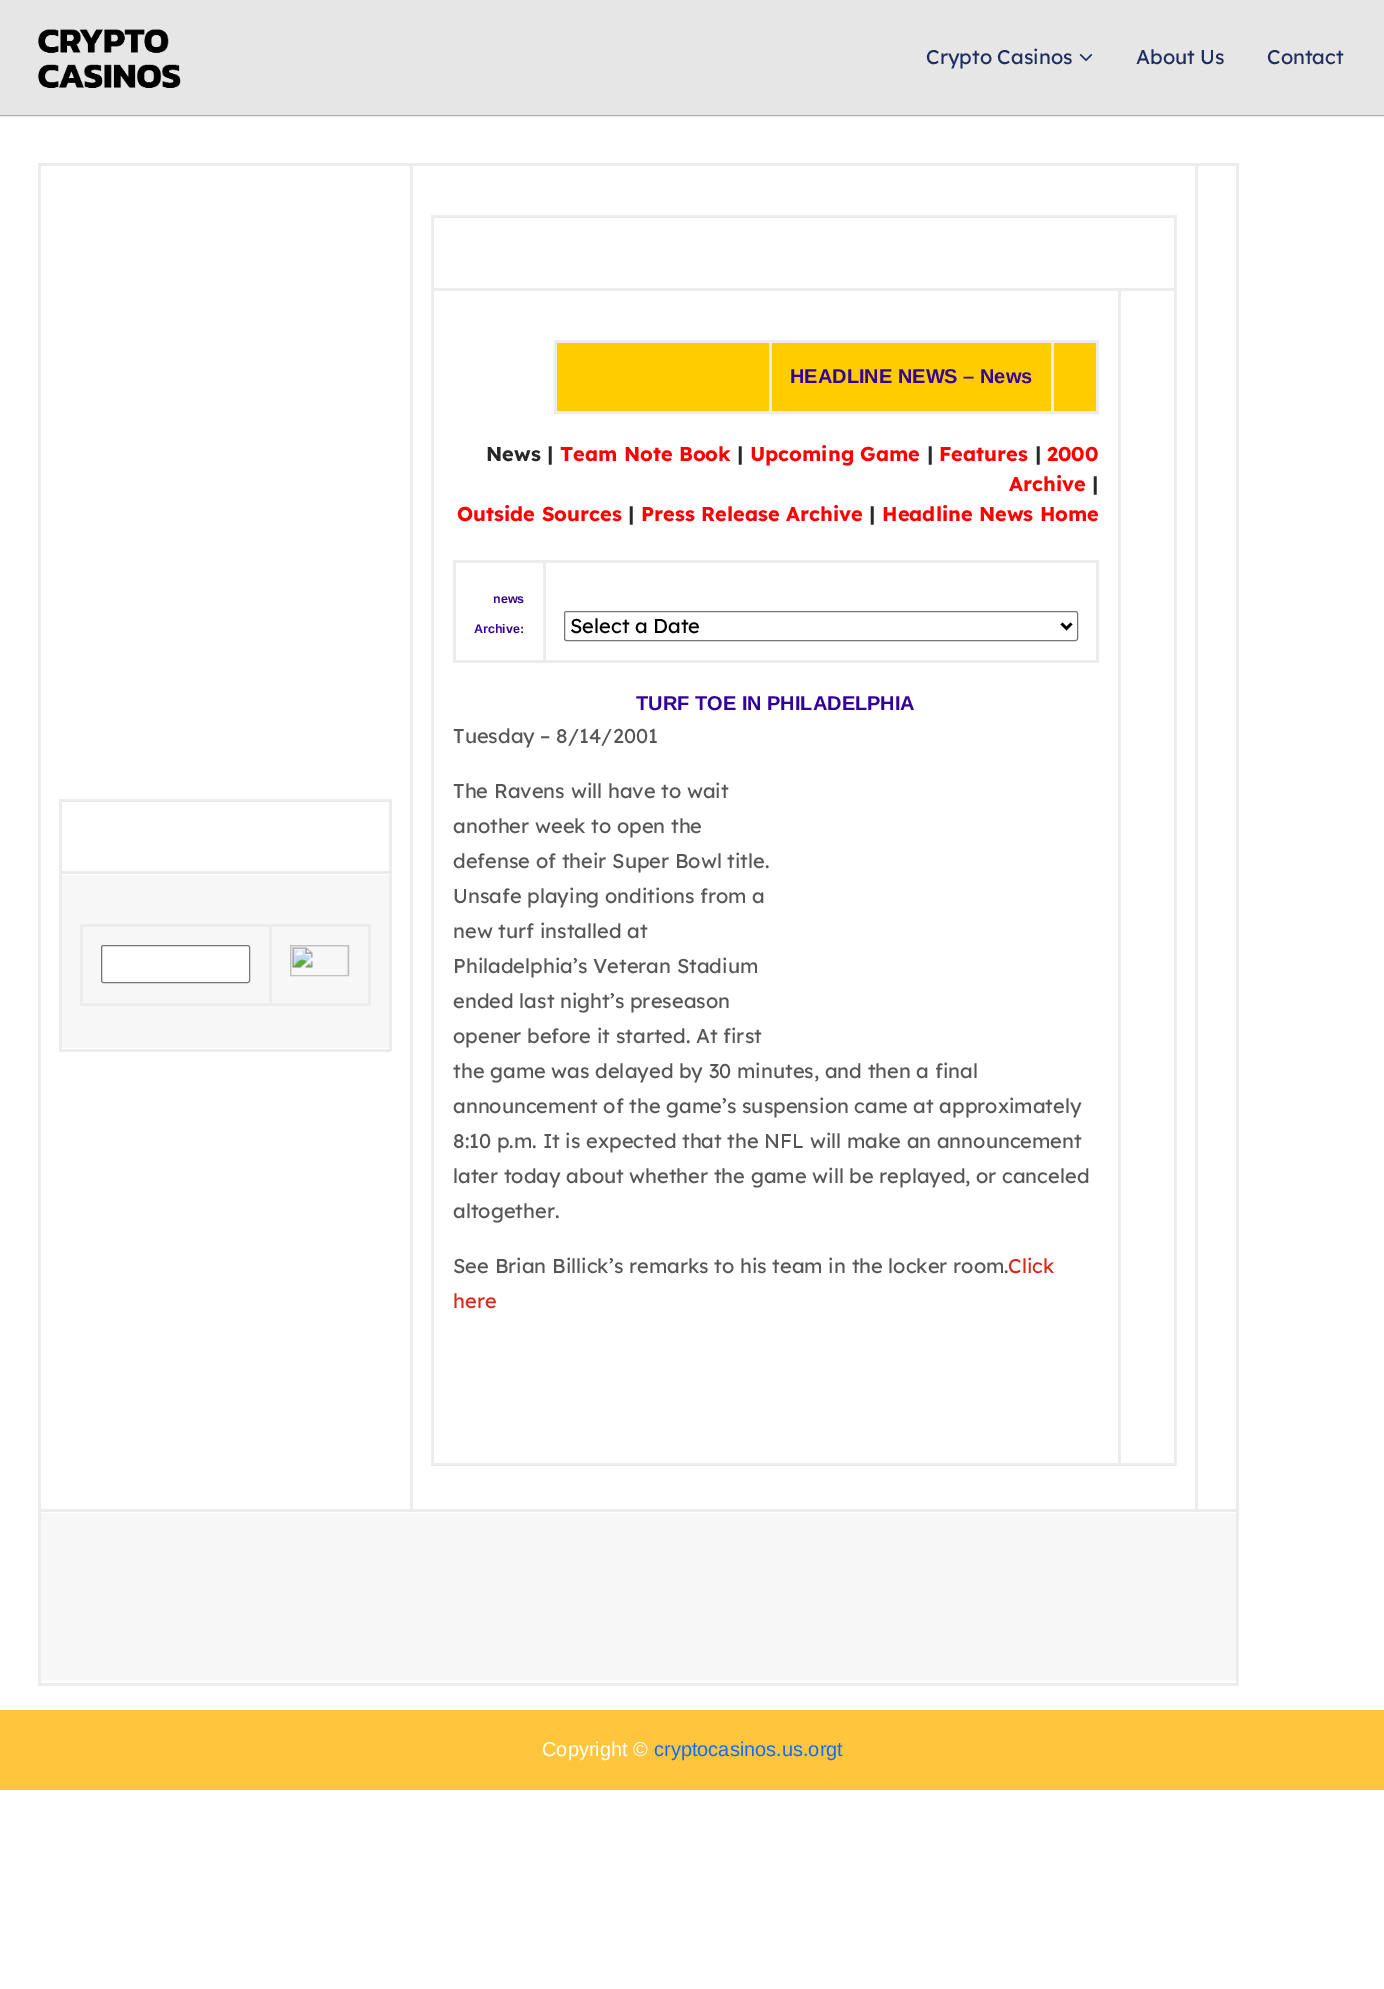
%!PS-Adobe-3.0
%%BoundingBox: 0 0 1384 1989
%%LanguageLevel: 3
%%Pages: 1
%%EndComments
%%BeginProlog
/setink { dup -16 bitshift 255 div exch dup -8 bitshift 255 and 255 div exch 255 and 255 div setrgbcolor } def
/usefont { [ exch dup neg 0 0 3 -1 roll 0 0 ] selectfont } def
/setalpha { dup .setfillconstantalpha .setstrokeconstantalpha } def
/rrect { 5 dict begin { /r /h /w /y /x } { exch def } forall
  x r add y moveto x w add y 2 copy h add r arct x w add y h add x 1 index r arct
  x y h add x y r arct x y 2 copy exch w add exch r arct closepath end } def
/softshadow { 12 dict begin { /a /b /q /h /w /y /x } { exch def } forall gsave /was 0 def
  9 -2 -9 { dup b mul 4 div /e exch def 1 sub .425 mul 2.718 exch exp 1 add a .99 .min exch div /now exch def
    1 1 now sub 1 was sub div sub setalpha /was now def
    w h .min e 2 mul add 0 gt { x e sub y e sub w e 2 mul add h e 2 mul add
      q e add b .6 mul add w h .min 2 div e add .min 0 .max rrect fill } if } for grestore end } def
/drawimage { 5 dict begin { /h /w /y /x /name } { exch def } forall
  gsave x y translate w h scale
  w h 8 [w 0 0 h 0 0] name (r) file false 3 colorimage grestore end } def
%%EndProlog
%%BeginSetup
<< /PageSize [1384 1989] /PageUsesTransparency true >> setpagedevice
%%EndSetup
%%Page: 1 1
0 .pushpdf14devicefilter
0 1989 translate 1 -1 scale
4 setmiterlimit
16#FFFFFF setink
0 0 1384 1989 rectfill
16#000000 setink
0 0 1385 115 0 1 1 softshadow
16#E6E6E6 setink
0 0 1384 115 rectfill
(img1.raw) 38 29 143 59 drawimage
/Lexend-Regular 20 usefont
16#1E2D5F setink
926 64 moveto (Crypto Casinos) show
(img2.raw) 1079 54 14 8 drawimage
1136 64 moveto (About Us) show
1267 64 moveto (Contact) show
[
    [38 163 1201 3 16#ECECEC]
    [1236 163 3 1522 16#ECECEC]
    [38 1683 1201 3 16#ECECEC]
    [38 163 3 1522 16#ECECEC]
    [59 799 332 3 16#ECECEC]
    [389 799 3 252 16#ECECEC]
    [59 1049 332 3 16#ECECEC]
    [59 799 3 252 16#ECECEC]
    [62 875 327 173 16#F7F7F7]
    [59 871 332 3 16#ECECEC]
    [80 924 290 3 16#ECECEC]
    [368 924 3 81 16#ECECEC]
    [80 1003 290 3 16#ECECEC]
    [80 924 3 81 16#ECECEC]
] { aload pop setink rectfill } forall
16#FFFFFF setink
101.5 945.5 148 37 2 rrect gsave fill grestore
16#767676 setink
stroke
16#ECECEC setink
269 924 3 81 rectfill
(img3.raw) 291 946 57 29 drawimage
16#C0C0C0 setink
290.5 945.5 58 30 rectstroke
[
    [38 1509 1201 3 16#ECECEC]
    [410 163 3 1348 16#ECECEC]
    [431 215 745 3 16#ECECEC]
    [1174 215 3 1250 16#ECECEC]
    [431 1463 745 3 16#ECECEC]
    [431 215 3 1250 16#ECECEC]
    [431 288 745 3 16#ECECEC]
    [554 340 545 3 16#ECECEC]
    [1096 340 3 74 16#ECECEC]
    [554 411 545 3 16#ECECEC]
    [554 340 3 74 16#ECECEC]
    [557 343 212 68 16#FFCC00]
    [772 343 279 68 16#FFCC00]
    [769 340 3 74 16#ECECEC]
] { aload pop setink rectfill } forall
/LiberationSans-Bold 20 usefont
16#330099 setink
790 383 moveto (HEADLINE NEWS – News) show
16#FFCC00 setink
1054 343 42 68 rectfill
16#ECECEC setink
1051 340 3 74 rectfill
/Lexend-Bold 20 usefont
16#272829 setink
486 461 moveto (News |) show
16#FF0000 setink
560 461 moveto (Team Note Book) show
16#272829 setink
737 461 moveto (|) show
16#FF0000 setink
750 461 moveto (Upcoming Game) show
16#272829 setink
927 461 moveto (|) show
16#FF0000 setink
939 461 moveto (Features) show
16#272829 setink
1035 461 moveto (|) show
16#FF0000 setink
1047 461 moveto (2000) show
1009 491 moveto (Archive) show
16#272829 setink
1092 491 moveto (|) show
16#FF0000 setink
457 521 moveto (Outside Sources) show
16#272829 setink
628 521 moveto (|) show
16#FF0000 setink
641 521 moveto (Press Release Archive) show
16#272829 setink
869 521 moveto (|) show
16#FF0000 setink
882 521 moveto (Headline News Home) show
[
    [453 560 646 3 16#ECECEC]
    [1096 560 3 103 16#ECECEC]
    [453 660 646 3 16#ECECEC]
    [453 560 3 103 16#ECECEC]
] { aload pop setink rectfill } forall
/LiberationSans-Bold 12.5 usefont
16#330099 setink
493 603 moveto (news) show
474 633 moveto (Archive:) show
16#ECECEC setink
543 560 3 103 rectfill
16#767676 setink
564.5 611.5 513 29 2 rrect stroke
16#000000 setink
2.5 setlinewidth
1061.5 623.5 moveto 1066.5 628.5 lineto 1071.5 623.5 lineto stroke
/Lexend-Regular 20 usefont
570 633 moveto (Select a Date) show
/LiberationSans-Bold 20 usefont
16#330099 setink
636 710 moveto (TURF TOE IN PHILADELPHIA) show
/Lexend-Regular 20 usefont
16#565656 setink
[
    [(Tuesday – 8/14/2001) 453 743]
    [(The Ravens will have to wait) 453 798]
    [(another week to open the) 453 833]
    [(defense of their Super Bowl title.) 453 868]
    [(Unsafe playing onditions from a) 453 903]
    [(new turf installed at) 453 938]
    [(Philadelphia’s Veteran Stadium) 453 973]
    [(ended last night’s preseason) 453 1008]
    [(opener before it started. At first) 453 1043]
    [(the game was delayed by 30 minutes, and then a final) 453 1078]
    [(announcement of the game’s suspension came at approximately) 453 1113]
    [(8:10 p.m. It is expected that the NFL will make an announcement) 453 1148]
    [(later today about whether the game will be replayed, or canceled) 453 1183]
    [(altogether.) 453 1218]
    [(See Brian Billick’s remarks to his team in the locker room.) 453 1273]
] { aload pop moveto show } forall
16#D82819 setink
1008 1273 moveto (Click) show
453 1308 moveto (here) show
[
    [1118 288 3 1177 16#ECECEC]
    [1195 163 3 1348 16#ECECEC]
    [41 1513 1195 168 16#F7F7F7]
    [0 1710 1384 80 16#FFC53D]
] { aload pop setink rectfill } forall
/LiberationSans-Regular 20 usefont
16#FFFFFF setink
542 1756 moveto (Copyright ©) show
16#0D6EFD setink
654 1756 moveto (cryptocasinos.us.orgt) show
.poppdf14devicefilter showpage
%%EOF
